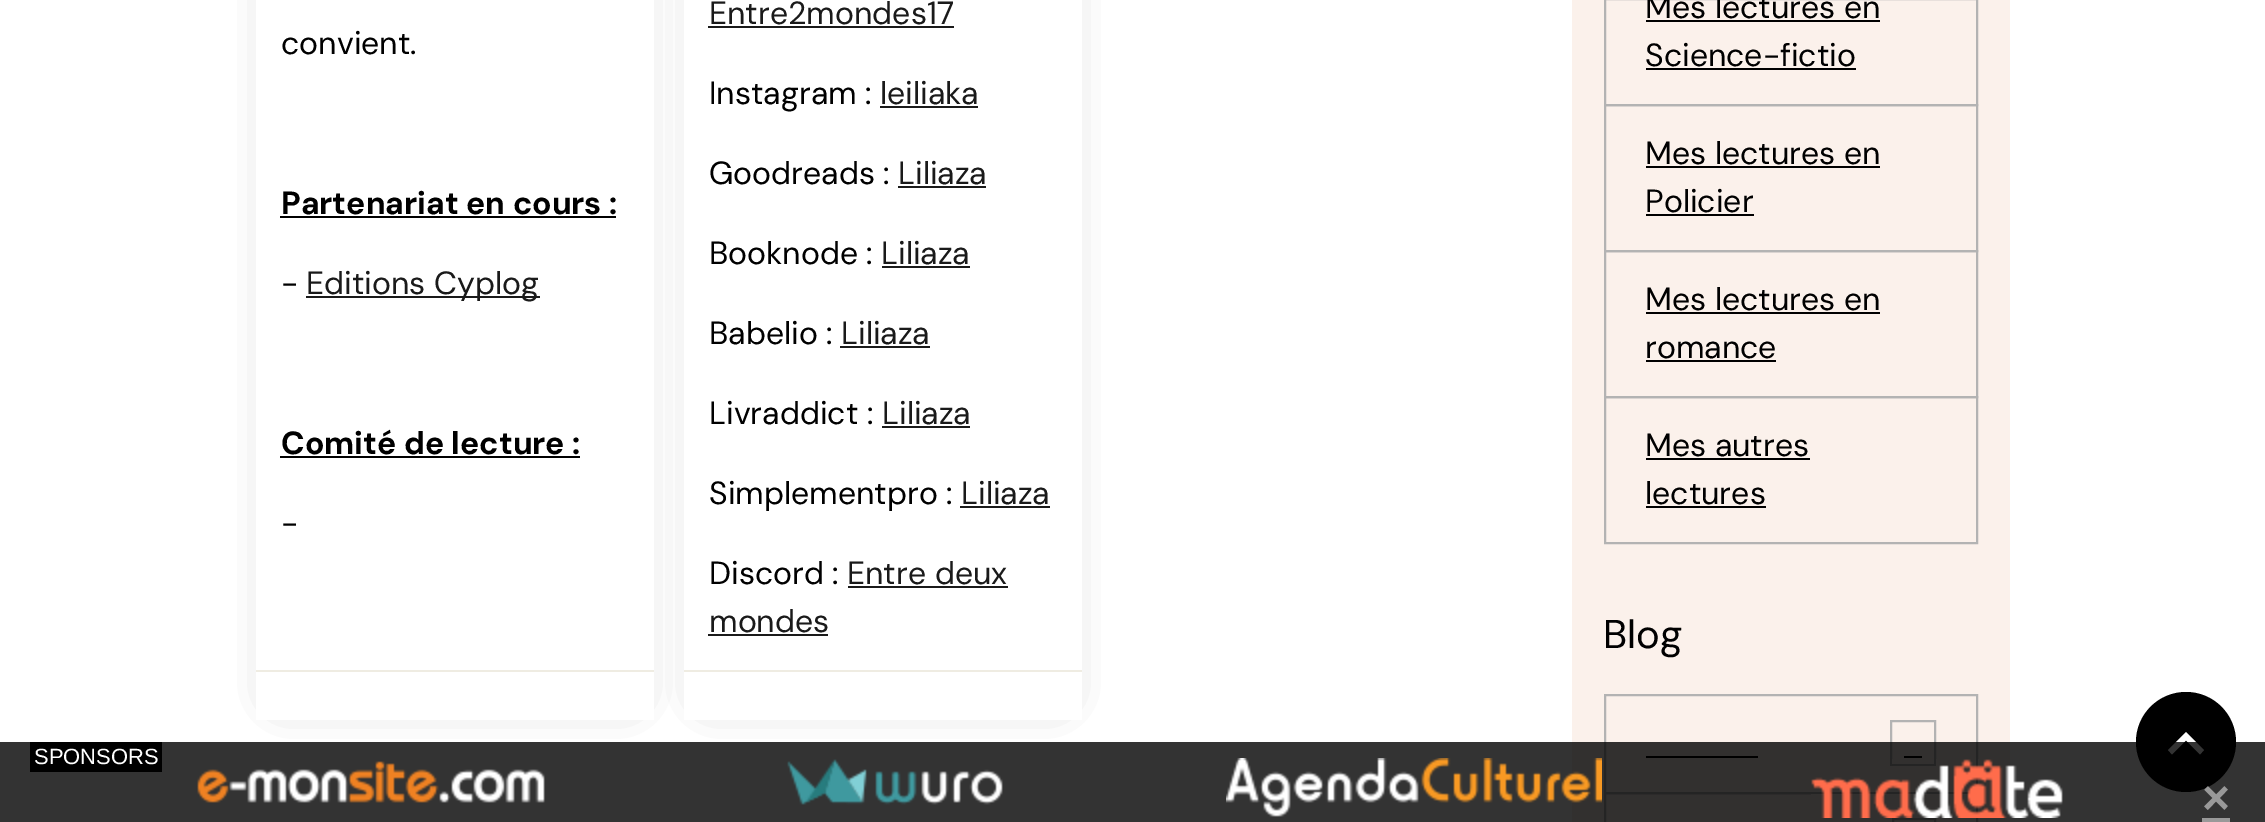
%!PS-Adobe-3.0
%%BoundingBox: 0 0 2265 822
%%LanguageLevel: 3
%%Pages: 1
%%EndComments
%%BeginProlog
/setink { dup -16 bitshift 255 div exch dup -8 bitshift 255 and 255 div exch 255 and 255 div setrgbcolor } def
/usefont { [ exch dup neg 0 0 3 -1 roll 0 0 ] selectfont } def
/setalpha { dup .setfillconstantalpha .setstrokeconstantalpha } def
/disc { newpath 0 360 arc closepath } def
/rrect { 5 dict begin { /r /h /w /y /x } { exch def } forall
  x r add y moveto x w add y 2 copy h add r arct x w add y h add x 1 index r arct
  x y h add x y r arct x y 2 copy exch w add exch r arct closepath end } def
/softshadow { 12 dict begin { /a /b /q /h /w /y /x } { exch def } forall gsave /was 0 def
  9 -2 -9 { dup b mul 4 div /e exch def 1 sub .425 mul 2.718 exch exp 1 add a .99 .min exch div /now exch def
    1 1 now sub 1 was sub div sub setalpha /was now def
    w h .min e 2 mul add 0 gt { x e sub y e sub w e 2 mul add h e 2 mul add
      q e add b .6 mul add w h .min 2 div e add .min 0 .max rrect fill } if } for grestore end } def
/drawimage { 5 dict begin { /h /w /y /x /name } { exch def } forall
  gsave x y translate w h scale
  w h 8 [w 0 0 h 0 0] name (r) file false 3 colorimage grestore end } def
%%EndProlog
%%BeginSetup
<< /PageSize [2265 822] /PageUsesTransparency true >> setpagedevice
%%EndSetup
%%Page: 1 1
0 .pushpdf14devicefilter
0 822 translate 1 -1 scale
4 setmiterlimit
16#FFFFFF setink
0 0 2265 822 rectfill
gsave
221 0 moveto 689 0 lineto 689 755 lineto 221 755 lineto closepath 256 -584 moveto 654 -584 lineto 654 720 lineto 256 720 lineto closepath eoclip newpath
16#000000 setink
282 -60 346 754 0 20 0.52 softshadow
grestore
/DMSans-Regular 32 usefont
16#000000 setink
281 54 moveto (convient.) show
/DMSans-Bold 32 usefont
281 214 moveto (Partenariat en cours :) show
280 216 336 2 rectfill
/DMSans-Regular 32 usefont
281 294 moveto (-) show
16#1A1A1A setink
306 296 234 2 rectfill
306 294 moveto (Editions Cyplog) show
/DMSans-Bold 32 usefont
16#000000 setink
281 454 moveto (Comité de lecture :) show
280 456 300 2 rectfill
/DMSans-Regular 32 usefont
281 534 moveto (-) show
16#EFECE2 setink
256 670 398 2 rectfill
gsave
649 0 moveto 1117 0 lineto 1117 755 lineto 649 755 lineto closepath 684 -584 moveto 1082 -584 lineto 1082 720 lineto 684 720 lineto closepath eoclip newpath
16#000000 setink
710 -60 346 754 0 20 0.52 softshadow
grestore
16#1A1A1A setink
709 24 moveto (Entre2mondes17) show
708 26 246 2 rectfill
16#000000 setink
709 104 moveto (Instagram :) show
16#1A1A1A setink
880 104 moveto (leiliaka) show
880 106 98 2 rectfill
16#000000 setink
709 184 moveto (Goodreads :) show
16#1A1A1A setink
898 184 moveto (Liliaza) show
898 186 88 2 rectfill
16#000000 setink
709 264 moveto (Booknode :) show
16#1A1A1A setink
881 264 moveto (Liliaza) show
882 266 88 2 rectfill
16#000000 setink
709 344 moveto (Babelio :) show
16#1A1A1A setink
841 344 moveto (Liliaza) show
840 346 90 2 rectfill
16#000000 setink
709 424 moveto (Livraddict :) show
16#1A1A1A setink
882 424 moveto (Liliaza) show
882 426 88 2 rectfill
16#000000 setink
709 504 moveto (Simplementpro :) show
16#1A1A1A setink
961 504 moveto (Liliaza) show
960 506 90 2 rectfill
16#000000 setink
709 584 moveto (Discord :) show
16#1A1A1A setink
847 584 moveto (Entre deux) show
848 586 160 2 rectfill
709 632 moveto (mondes) show
[
    [708 634 120 2 16#1A1A1A]
    [684 670 398 2 16#EFECE2]
    [1572 0 438 822 16#FBF1EB]
] { aload pop setink rectfill } forall
16#B3B3B3 setink
2 setlinewidth
1605 -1 372 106 rectstroke
16#000000 setink
1645 18 moveto (Mes lectures en) show
1646 20 234 2 rectfill
1645 66 moveto (Science-fictio) show
1646 68 210 2 rectfill
16#B3B3B3 setink
1605 105 372 146 rectstroke
16#000000 setink
1645 164 moveto (Mes lectures en) show
1646 166 234 2 rectfill
1645 212 moveto (Policier) show
1646 214 108 2 rectfill
16#B3B3B3 setink
1605 251 372 146 rectstroke
16#000000 setink
1645 310 moveto (Mes lectures en) show
1646 312 234 2 rectfill
1645 358 moveto (romance) show
1646 360 130 2 rectfill
16#B3B3B3 setink
1605 397 372 146 rectstroke
16#000000 setink
1645 456 moveto (Mes autres) show
1646 458 164 2 rectfill
1645 504 moveto (lectures) show
1646 506 120 2 rectfill
/DMSans-Regular 40 usefont
1603 648 moveto (Blog) show
16#B3B3B3 setink
1605 695 372 98 rectstroke
16#000000 setink
1646 756 112 2 rectfill
16#B3B3B3 setink
1891 721 44 44 rectstroke
16#000000 setink
1904 756 18 2 rectfill
16#B3B3B3 setink
1605 793 372 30 rectstroke
1893 819 42 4 rectstroke
16#000000 setink
2186 742 50 disc fill
16#FFFFFF setink
2186 732 moveto 2204 750 lineto 2200 754.5 lineto 2186 740.5 lineto 2172 754.5 lineto 2168 750 lineto closepath fill
0.8 setalpha
16#000000 setink
0 742 2265 80 rectfill
1 setalpha
30 742 132 30 rectfill
/LiberationSans-Regular 22 usefont
16#FFFFFF setink
34 764 moveto (SPONSORS) show
(img1.raw) 197 761 348 42 drawimage
(img2.raw) 787 759 216 46 drawimage
(img3.raw) 1226 758 376 59 drawimage
(img4.raw) 1811 759 252 59 drawimage
/LiberationSans-Bold 48 usefont
16#999999 setink
2202 814 moveto (×) show
2202 818 28 4 rectfill
.poppdf14devicefilter showpage
%%EOF
